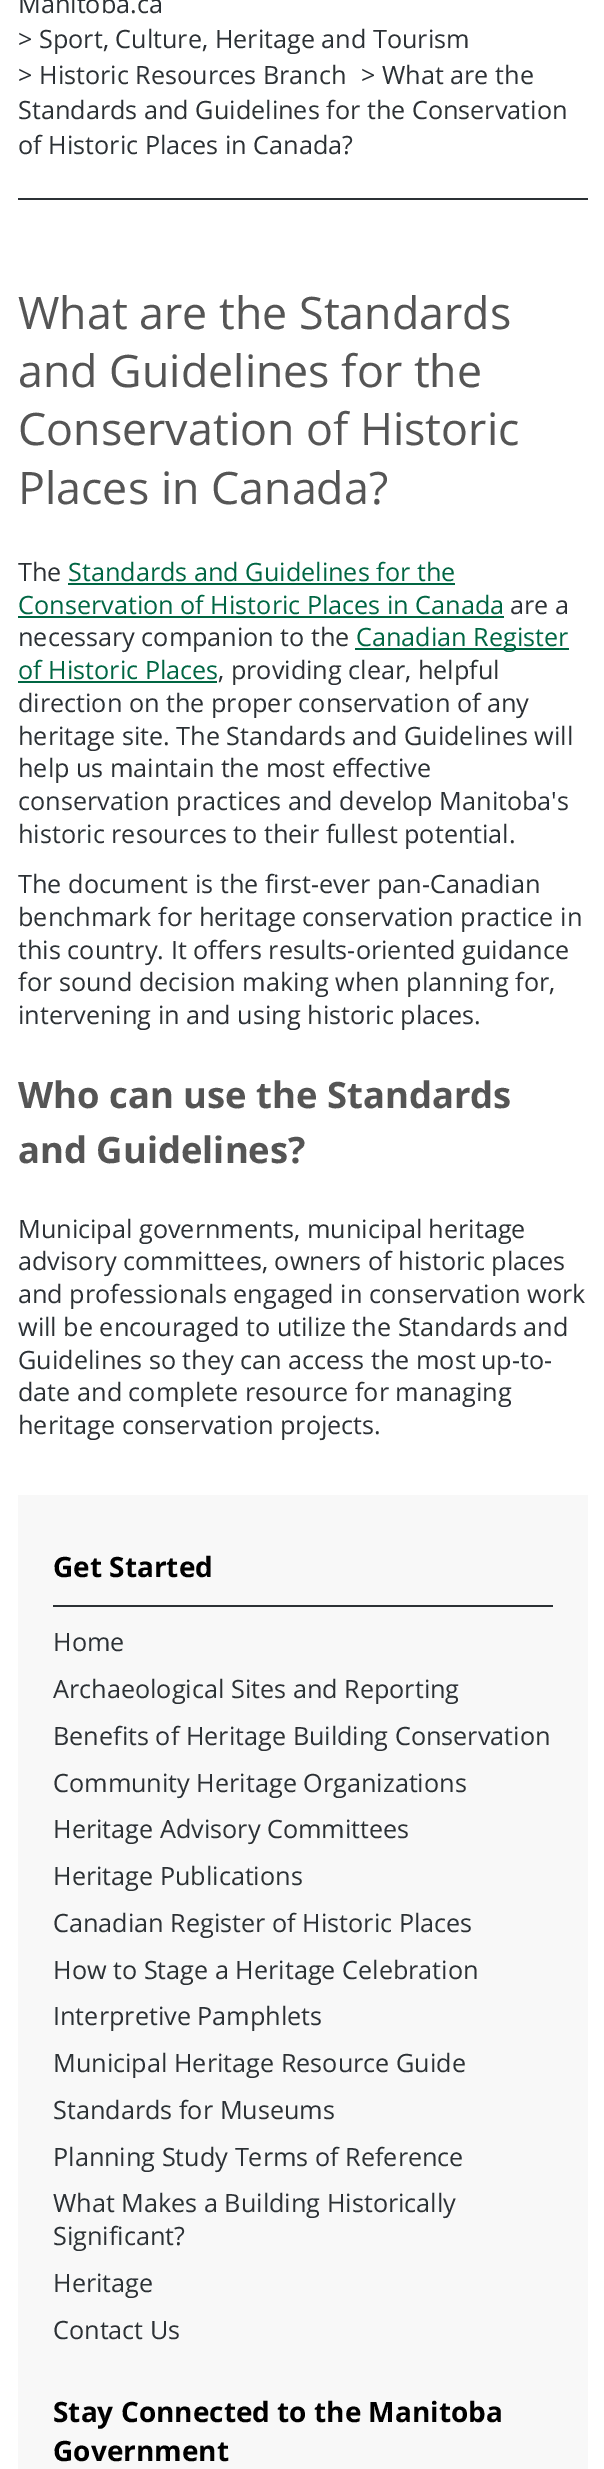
%!PS-Adobe-3.0
%%BoundingBox: 0 0 604 2469
%%LanguageLevel: 3
%%Pages: 1
%%EndComments
%%BeginProlog
/setink { dup -16 bitshift 255 div exch dup -8 bitshift 255 and 255 div exch 255 and 255 div setrgbcolor } def
/usefont { [ exch dup neg 0 0 3 -1 roll 0 0 ] selectfont } def
%%EndProlog
%%BeginSetup
<< /PageSize [604 2469] >> setpagedevice
%%EndSetup
%%Page: 1 1
0 2469 translate 1 -1 scale
4 setmiterlimit
16#FFFFFF setink
0 0 604 2469 rectfill
16#2C3135 setink
18 198 570 2 rectfill
/OpenSans-Regular 25.2 usefont
[
    [(Manitoba.ca) 18 13]
    [(> Sport, Culture, Heritage and Tourism) 18 48]
    [(> Historic Resources Branch) 18 84]
    [(> What are the) 361 84]
    [(Standards and Guidelines for the Conservation) 18 119]
    [(of Historic Places in Canada?) 18 154]
] { aload pop moveto show } forall
/OpenSans-Regular 44.75 usefont
16#555555 setink
[
    [(What are the Standards) 18 329]
    [(and Guidelines for the) 18 387]
    [(Conservation of Historic) 18 445]
    [(Places in Canada?) 18 504]
] { aload pop moveto show } forall
/OpenSans-Regular 25.2 usefont
16#2C3135 setink
18 581 moveto (The) show
16#006643 setink
68 581 moveto (Standards and Guidelines for the) show
68 583 387 2 rectfill
18 614 moveto (Conservation of Historic Places in Canada) show
18 616 486 2 rectfill
16#2C3135 setink
510 614 moveto (are a) show
18 646 moveto (necessary companion to the) show
16#006643 setink
355 648 214 2 rectfill
356 646 moveto (Canadian Register) show
18 679 moveto (of Historic Places) show
18 681 199 2 rectfill
16#2C3135 setink
[
    [(, providing clear, helpful) 218 679]
    [(direction on the proper conservation of any) 18 712]
    [(heritage site. The Standards and Guidelines will) 18 745]
    [(help us maintain the most effective) 18 777]
    [(conservation practices and develop Manitoba's) 18 810]
    [(historic resources to their fullest potential.) 18 843]
    [(The document is the first-ever pan-Canadian) 18 893]
    [(benchmark for heritage conservation practice in) 18 926]
    [(this country. It offers results-oriented guidance) 18 959]
    [(for sound decision making when planning for,) 18 991]
    [(intervening in and using historic places.) 18 1024]
] { aload pop moveto show } forall
/OpenSans-Bold 36.4 usefont
16#555555 setink
18 1108 moveto (Who can use the Standards) show
18 1163 moveto (and Guidelines?) show
/OpenSans-Regular 25.2 usefont
16#2C3135 setink
[
    [(Municipal governments, municipal heritage) 18 1238]
    [(advisory committees, owners of historic places) 18 1270]
    [(and professionals engaged in conservation work) 18 1303]
    [(will be encouraged to utilize the Standards and) 18 1336]
    [(Guidelines so they can access the most) 18 1369]
    [(up-to-) 481 1369]
    [(date and complete resource for managing) 18 1401]
    [(heritage conservation projects.) 18 1434]
] { aload pop moveto show } forall
16#F8F8F8 setink
18 1495 570 974 rectfill
16#2C3135 setink
53 1605 500 2 rectfill
/OpenSans-Bold 28 usefont
16#000000 setink
53 1577 moveto (Get Started) show
/OpenSans-Regular 25.2 usefont
16#2C3135 setink
[
    [(Home) 53 1651]
    [(Archaeological Sites and Reporting) 53 1698]
    [(Benefits of Heritage Building Conservation) 53 1745]
    [(Community Heritage Organizations) 53 1792]
    [(Heritage Advisory Committees) 53 1838]
    [(Heritage Publications) 53 1885]
    [(Canadian Register of Historic Places) 53 1932]
    [(How to Stage a Heritage Celebration) 53 1979]
    [(Interpretive Pamphlets) 53 2025]
    [(Municipal Heritage Resource Guide) 53 2072]
    [(Standards for Museums) 53 2119]
    [(Planning Study Terms of Reference) 53 2166]
    [(What Makes a Building Historically) 53 2212]
    [(Significant?) 53 2245]
    [(Heritage) 53 2292]
    [(Contact Us) 53 2339]
] { aload pop moveto show } forall
/OpenSans-Bold 28 usefont
16#000000 setink
53 2422 moveto (Stay Connected to the Manitoba) show
53 2461 moveto (Government) show
showpage
%%EOF
